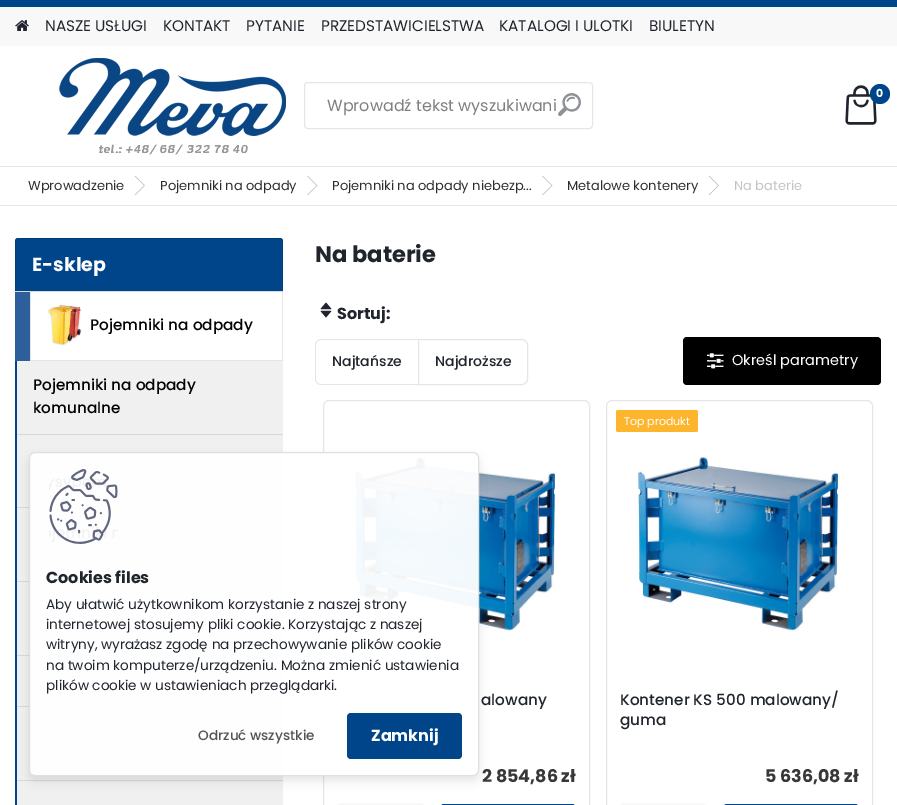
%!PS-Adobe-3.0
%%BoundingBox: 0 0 897 805
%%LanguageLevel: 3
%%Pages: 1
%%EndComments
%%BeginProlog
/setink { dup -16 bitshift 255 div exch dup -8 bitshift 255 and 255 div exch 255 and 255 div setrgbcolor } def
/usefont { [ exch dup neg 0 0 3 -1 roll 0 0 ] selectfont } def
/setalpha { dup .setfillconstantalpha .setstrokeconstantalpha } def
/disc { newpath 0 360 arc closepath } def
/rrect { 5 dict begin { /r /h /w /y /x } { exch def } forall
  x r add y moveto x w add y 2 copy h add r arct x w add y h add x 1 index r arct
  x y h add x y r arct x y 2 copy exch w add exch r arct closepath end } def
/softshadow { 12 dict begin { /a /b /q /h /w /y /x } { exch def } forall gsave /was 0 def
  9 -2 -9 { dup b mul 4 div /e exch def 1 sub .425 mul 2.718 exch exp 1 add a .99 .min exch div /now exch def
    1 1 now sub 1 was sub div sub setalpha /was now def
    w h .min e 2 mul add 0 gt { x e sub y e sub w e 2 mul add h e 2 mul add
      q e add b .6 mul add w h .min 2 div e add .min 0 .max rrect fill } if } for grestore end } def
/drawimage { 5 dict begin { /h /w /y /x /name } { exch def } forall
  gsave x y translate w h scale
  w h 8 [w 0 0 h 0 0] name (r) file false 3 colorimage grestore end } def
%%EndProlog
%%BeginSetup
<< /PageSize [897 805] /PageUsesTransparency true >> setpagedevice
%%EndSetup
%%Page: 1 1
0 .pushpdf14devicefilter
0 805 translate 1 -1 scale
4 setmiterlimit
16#FFFFFF setink
0 0 897 805 rectfill
[
    [0 0 897 7 16#004489]
    [0 166 897 1 16#E6E6E6]
    [0 7 897 39 16#F8F8F8]
] { aload pop setink rectfill } forall
(img1.raw) 15 20 14 11 drawimage
/Poppins-Regular 15.25 usefont
16#1F242D setink
[
    [(NASZE USŁUGI) 45 31]
    [(KONTAKT) 163 31]
    [(PYTANIE) 246 31]
    [(PRZEDSTAWICIELSTWA) 321 31]
    [(KATALOGI I ULOTKI) 499 31]
    [(BIULETYN) 649 31]
] { aload pop moveto show } forall
(img2.raw) 59 58 227 97 drawimage
(img3.raw) 845 85 32 40 drawimage
16#004489 setink
880 94 10 disc fill
/Poppins-Bold 11 usefont
16#FFFFFF setink
876 97 moveto (0) show
16#E6E6E6 setink
304.5 82.5 288 46 3.5 rrect stroke
/Poppins-Regular 16 usefont
16#808080 setink
327 111 moveto (Wprowadź tekst wyszukiwani) show
(img4.raw) 558 93 23 23 drawimage
16#E6E6E6 setink
0 205 897 1 rectfill
/Poppins-Regular 13 usefont
16#2D2D2D setink
28 190 moveto (Wprowadzenie) show
16#C3C3C3 setink
134.5 176 moveto 135.5 176 lineto 145 185.5 lineto 144 185.5 lineto closepath fill
144 185.5 moveto 145 185.5 lineto 135.5 195 lineto 134.5 195 lineto closepath fill
16#2D2D2D setink
160 190 moveto (Pojemniki na odpady) show
16#C3C3C3 setink
307 176 moveto 308 176 lineto 317.5 185.5 lineto 316.5 185.5 lineto closepath fill
0.3 setalpha
16#373737 setink
316.5 185.5 moveto 317.5 185.5 lineto 308 195 lineto 307 195 lineto closepath fill
1 setalpha
16#2D2D2D setink
332 190 moveto (Pojemniki na odpady niebezp...) show
16#C3C3C3 setink
542 176 moveto 543 176 lineto 552.5 185.5 lineto 551.5 185.5 lineto closepath fill
0.3 setalpha
16#373737 setink
551.5 185.5 moveto 552.5 185.5 lineto 543 195 lineto 542 195 lineto closepath fill
1 setalpha
16#2D2D2D setink
567 190 moveto (Metalowe kontenery) show
16#C3C3C3 setink
708.5 176 moveto 709.5 176 lineto 719 185.5 lineto 718 185.5 lineto closepath fill
718 185.5 moveto 719 185.5 lineto 709.5 195 lineto 708.5 195 lineto closepath fill
734 190 moveto (Na baterie) show
16#E6E6E6 setink
283 291 moveto 283 361 lineto 282 360 lineto 282 291 lineto closepath fill
0.1 setalpha
16#000000 setink
283 361 moveto 30 361 lineto 31 360 lineto 282 360 lineto closepath fill
30 361 moveto 30 291 lineto 31 291 lineto 31 360 lineto closepath fill
1 setalpha
16#D9D9D9 setink
15 291 268 1 rectfill
16#004489 setink
18 238 moveto 280 238 lineto 281.5 238 283 239.5 283 241 curveto 283 291 lineto 15 291 lineto 15 241 lineto 15 239.5 16.5 238 18 238 curveto closepath fill
0.1 setalpha
16#000000 setink
18 238 moveto 280 238 lineto 282 238 283 239 283 241 curveto 283 291 lineto 15 291 lineto 15 241 lineto 15 239 16 238 18 238 curveto closepath 18 239 moveto 280 239 lineto 281 239 282 240 282 241 curveto 282 291 lineto 16 291 lineto 16 241 lineto 16 240 17 239 18 239 curveto closepath eofill
/Poppins-Bold 19 usefont
1 setalpha
16#FFFFFF setink
32 271 moveto (E-sklep) show
16#2D5F9C setink
15 292 15 69 rectfill
(img5.raw) 47 304 35 42 drawimage
/Poppins-Medium 15.25 usefont
16#000000 setink
90 330 moveto (Pojemniki na odpady) show
16#F0F0F0 setink
17 361 266 444 rectfill
16#004489 setink
15 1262 moveto 15 361 lineto 17 361 lineto 17 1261 lineto closepath fill
16#D8D8D8 setink
17 434 266 1 rectfill
16#000000 setink
33 390 moveto (Pojemniki na odpady) show
33 413 moveto (komunalne) show
[
    [17 507 266 1 16#D8D8D8]
    [17 581 266 1 16#D8D8D8]
    [17 655 266 1 16#D8D8D8]
    [17 706 266 1 16#D8D8D8]
    [17 780 266 1 16#D8D8D8]
] { aload pop setink rectfill } forall
/Poppins-Bold 22.5 usefont
16#1F242D setink
315 262 moveto (Na baterie) show
(img6.raw) 320 302 12 16 drawimage
/Poppins-Bold 16 usefont
337 319 moveto (Sortuj:) show
16#E6E6E6 setink
321 339 moveto 418 339 lineto 418 385 lineto 321 385 lineto 318 385 315 382 315 379 curveto 315 345 lineto 315 342 318 339 321 339 curveto closepath 321 340 moveto 418 340 lineto 418 384 lineto 321 384 lineto 318 384 316 382 316 379 curveto 316 345 lineto 316 342 318 340 321 340 curveto closepath eofill
/Poppins-Medium 14 usefont
16#1F242D setink
332 366 moveto (Najtańsze) show
16#E6E6E6 setink
418.5 339.5 moveto 522 339.5 lineto 525 339.5 527.5 342 527.5 345 curveto 527.5 379 lineto 527.5 382 525 384.5 522 384.5 curveto 418.5 384.5 lineto closepath stroke
16#1F242D setink
435 366 moveto (Najdroższe) show
16#000000 setink
683 337 198 48 4 rrect fill
(img7.raw) 707 353 17 16 drawimage
/Poppins-Regular 14.5 usefont
16#FFFFFF setink
732 365 moveto (Określ parametry) show
16#E6E6E6 setink
323.5 400.5 266 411 5.5 rrect stroke
(img8.raw) 354 457 201 174 drawimage
/Poppins-Medium 15.25 usefont
16#1F242D setink
481 705 moveto (alowany) show
/Poppins-Bold 17.5 usefont
16#383838 setink
482 782 moveto (2 854,86 zł) show
16#F8F8F8 setink
4 setlinewidth
339 805 83 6 2 rrect stroke
16#004489 setink
440 804 136 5 4 rrect fill
16#E6E6E6 setink
1 setlinewidth
606.5 400.5 266 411 5.5 rrect stroke
16#FDB52D setink
616 410 82 22 2 rrect fill
/Poppins-Regular 11 usefont
16#FFFFFF setink
624 425 moveto (Top produkt) show
(img8.raw) 637 457 201 174 drawimage
/Poppins-Medium 15.25 usefont
16#1F242D setink
620 705 moveto (Kontener KS 500 malowany/) show
620 725 moveto (guma) show
/Poppins-Bold 17.5 usefont
16#383838 setink
765 782 moveto (5 636,08 zł) show
16#F8F8F8 setink
4 setlinewidth
622 805 83 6 2 rrect stroke
16#004489 setink
723 804 136 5 4 rrect fill
gsave
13 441 moveto 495 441 lineto 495 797 lineto 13 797 lineto closepath 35 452 moveto 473 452 lineto 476.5 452 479 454.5 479 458 curveto 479 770 lineto 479 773.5 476.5 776 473 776 curveto 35 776 lineto 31.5 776 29 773.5 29 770 curveto 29 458 lineto 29 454.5 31.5 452 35 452 curveto closepath eoclip newpath
16#000000 setink
29 457 450 324 6 5 0.1 softshadow
grestore
0.95 setalpha
16#FFFFFF setink
29.5 452.5 449 323 5.5 rrect fill
1 setalpha
16#E0E0E0 setink
1 setlinewidth
29.5 452.5 449 323 5.5 rrect stroke
(img9.raw) 49 469 69 75 drawimage
/Poppins-Bold 16 usefont
16#1F242D setink
46 583 moveto (Cookies files) show
/Poppins-Regular 13.6 usefont
[
    [(Aby ułatwić użytkownikom korzystanie z naszej strony) 46 609]
    [(internetowej stosujemy pliki cookie. Korzystając z naszej) 46 629]
    [(witryny, wyrażasz zgodę na przechowywanie plików cookie) 46 649]
    [(na twoim komputerze/urządzeniu. Można zmienić ustawienia) 46 670]
    [(plików cookie w ustawieniach przeglądarki.) 46 690]
] { aload pop moveto show } forall
/Poppins-Medium 13.6 usefont
16#535353 setink
198 740 moveto (Odrzuć wszystkie) show
16#004489 setink
347 713 115 46 4 rrect fill
/Poppins-Bold 16 usefont
16#FFFFFF setink
371 741 moveto (Zamknij) show
.poppdf14devicefilter showpage
%%EOF
